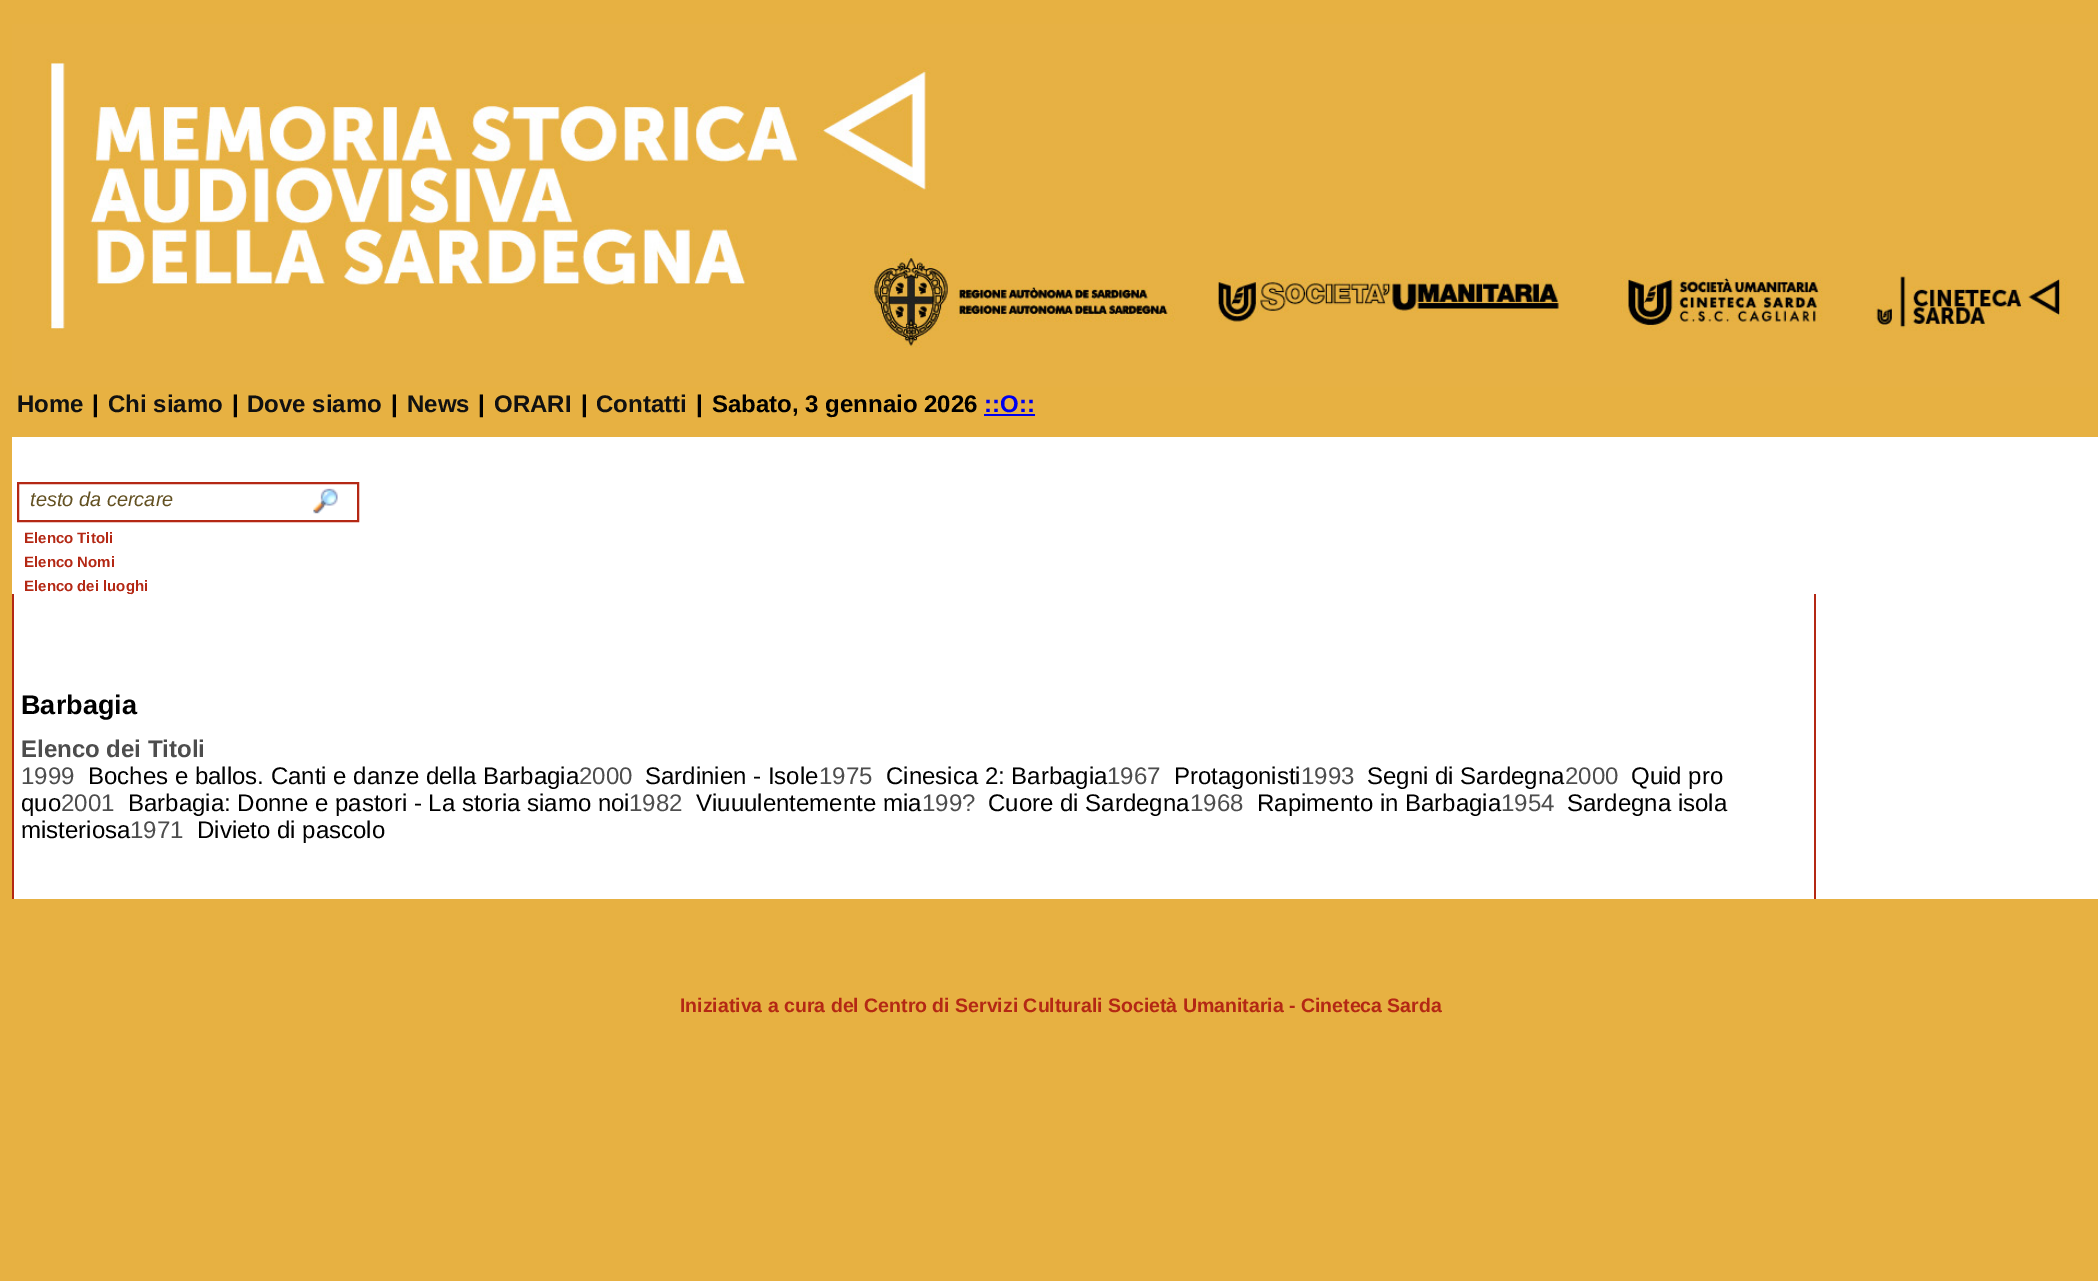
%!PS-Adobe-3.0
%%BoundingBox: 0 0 2098 1281
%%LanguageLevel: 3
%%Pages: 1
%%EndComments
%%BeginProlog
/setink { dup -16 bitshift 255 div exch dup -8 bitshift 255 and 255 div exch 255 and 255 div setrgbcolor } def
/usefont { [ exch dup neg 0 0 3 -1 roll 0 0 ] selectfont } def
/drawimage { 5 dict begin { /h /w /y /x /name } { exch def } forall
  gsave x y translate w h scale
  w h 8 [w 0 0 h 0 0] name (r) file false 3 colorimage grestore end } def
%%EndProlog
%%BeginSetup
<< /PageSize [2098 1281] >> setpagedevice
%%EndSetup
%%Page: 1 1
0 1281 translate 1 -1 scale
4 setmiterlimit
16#E7B142 setink
0 0 2098 1281 rectfill
(img1.raw) 12 24 2086 363 drawimage
/LiberationSans-Bold 24 usefont
16#111111 setink
17 412 moveto (Home) show
16#000000 setink
92 412 moveto (|) show
16#111111 setink
108 412 moveto (Chi siamo) show
16#000000 setink
232 412 moveto (|) show
16#111111 setink
247 412 moveto (Dove siamo) show
16#000000 setink
391 412 moveto (|) show
16#111111 setink
407 412 moveto (News) show
16#000000 setink
478 412 moveto (|) show
16#111111 setink
494 412 moveto (ORARI) show
16#000000 setink
581 412 moveto (|) show
16#111111 setink
596 412 moveto (Contatti) show
16#000000 setink
696 412 moveto (|) show
712 412 moveto (Sabato, 3 gennaio 2026) show
16#0000EE setink
984 412 moveto (::O::) show
984 414 51 2 rectfill
16#FFFFFF setink
12 437 2086 462 rectfill
(img2.raw) 313 488 25 26 drawimage
16#B42814 setink
2 setlinewidth
18 483 340 38 rectstroke
/LiberationSans-Italic 20 usefont
16#635122 setink
30 506 moveto (testo da cercare) show
/LiberationSans-Bold 15 usefont
16#B42814 setink
[
    [(Elenco Titoli) 24 543]
    [(Elenco Nomi) 24 567]
    [(Elenco dei luoghi) 24 591]
] { aload pop moveto show } forall
[
    [128 594 3 1 16#FFFFFF]
    [1814 594 2 305 16#B42814]
    [12 594 2 305 16#B42814]
] { aload pop setink rectfill } forall
/LiberationSans-Bold 27 usefont
16#000000 setink
21 714 moveto (Barbagia) show
/LiberationSans-Bold 24 usefont
16#4D4D4D setink
21 757 moveto (Elenco dei Titoli) show
/LiberationSans-Regular 24 usefont
21 784 moveto (1999) show
16#000000 setink
88 784 moveto (Boches e ballos. Canti e danze della Barbagia) show
16#4D4D4D setink
579 784 moveto (2000) show
16#000000 setink
645 784 moveto (Sardinien - Isole) show
16#4D4D4D setink
819 784 moveto (1975) show
16#000000 setink
886 784 moveto (Cinesica 2: Barbagia) show
16#4D4D4D setink
1107 784 moveto (1967) show
16#000000 setink
1174 784 moveto (Protagonisti) show
16#4D4D4D setink
1301 784 moveto (1993) show
16#000000 setink
1367 784 moveto (Segni di Sardegna) show
16#4D4D4D setink
1565 784 moveto (2000) show
16#000000 setink
1631 784 moveto (Quid pro) show
21 811 moveto (quo) show
16#4D4D4D setink
61 811 moveto (2001) show
16#000000 setink
128 811 moveto (Barbagia: Donne e pastori - La storia siamo noi) show
16#4D4D4D setink
629 811 moveto (1982) show
16#000000 setink
696 811 moveto (Viuuulentemente mia) show
16#4D4D4D setink
922 811 moveto (199?) show
16#000000 setink
988 811 moveto (Cuore di Sardegna) show
16#4D4D4D setink
1190 811 moveto (1968) show
16#000000 setink
1257 811 moveto (Rapimento in Barbagia) show
16#4D4D4D setink
1501 811 moveto (1954) show
16#000000 setink
1567 811 moveto (Sardegna isola) show
21 838 moveto (misteriosa) show
16#4D4D4D setink
130 838 moveto (1971) show
16#000000 setink
197 838 moveto (Divieto di pascolo) show
/LiberationSans-Bold 19.5 usefont
16#B42814 setink
680 1012 moveto (Iniziativa a cura del Centro di Servizi Culturali Società Umanitaria - Cineteca Sarda) show
showpage
%%EOF
